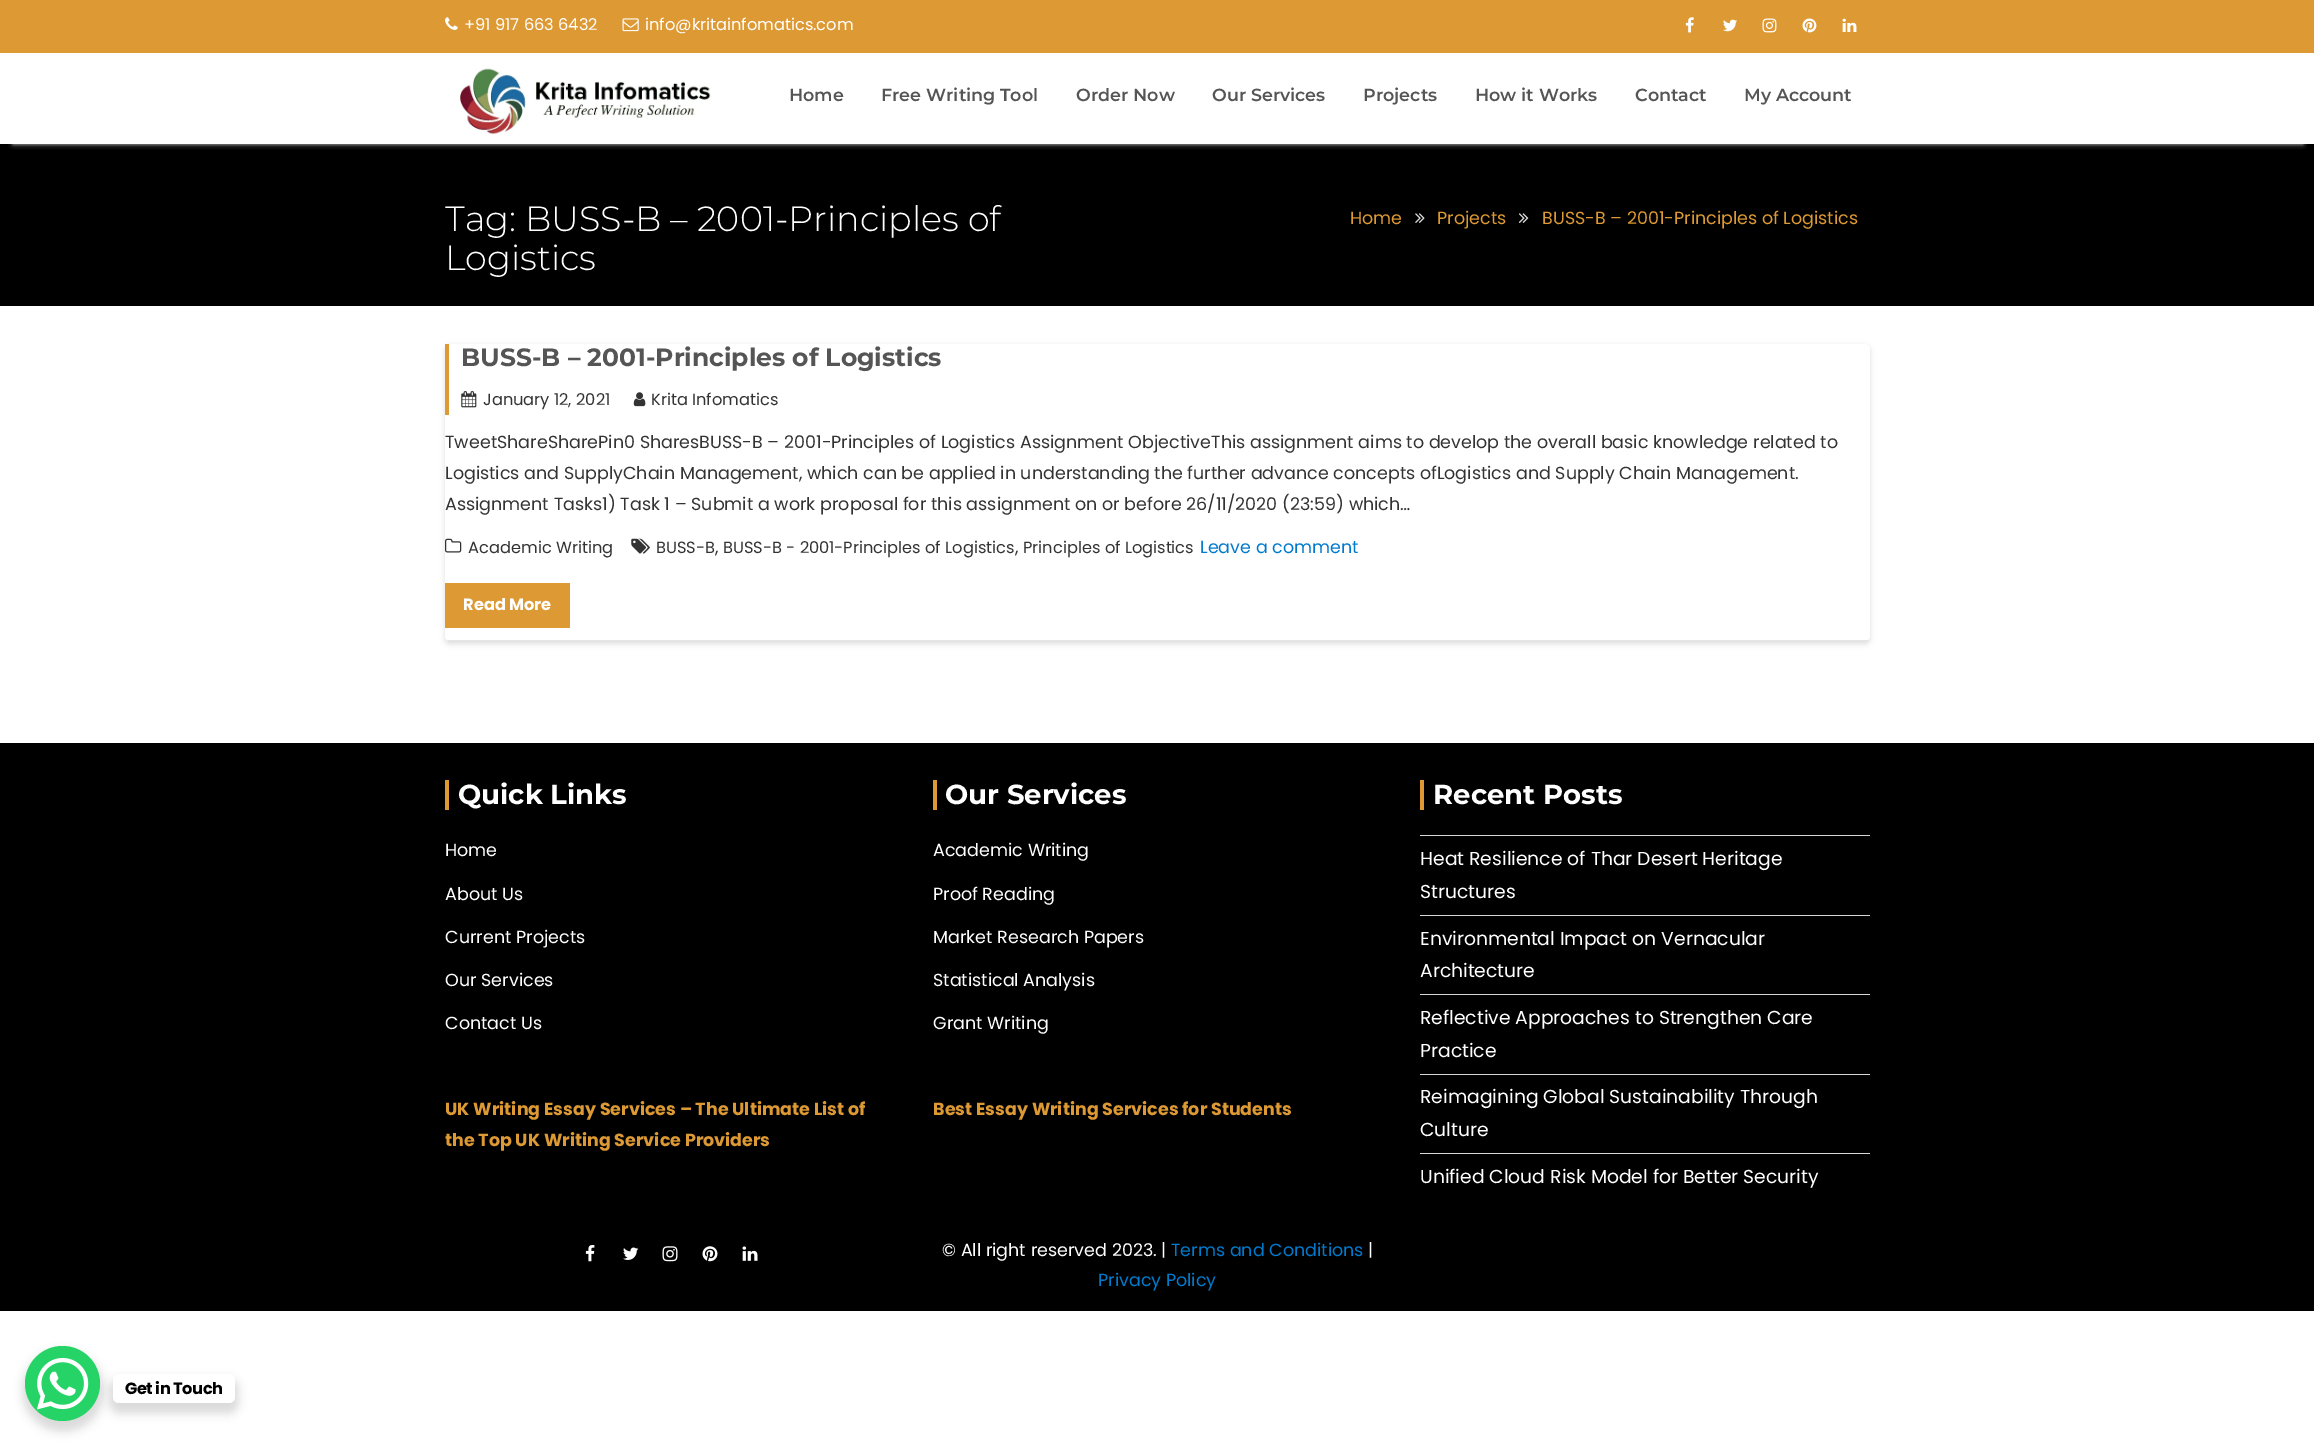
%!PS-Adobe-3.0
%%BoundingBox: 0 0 2314 1446
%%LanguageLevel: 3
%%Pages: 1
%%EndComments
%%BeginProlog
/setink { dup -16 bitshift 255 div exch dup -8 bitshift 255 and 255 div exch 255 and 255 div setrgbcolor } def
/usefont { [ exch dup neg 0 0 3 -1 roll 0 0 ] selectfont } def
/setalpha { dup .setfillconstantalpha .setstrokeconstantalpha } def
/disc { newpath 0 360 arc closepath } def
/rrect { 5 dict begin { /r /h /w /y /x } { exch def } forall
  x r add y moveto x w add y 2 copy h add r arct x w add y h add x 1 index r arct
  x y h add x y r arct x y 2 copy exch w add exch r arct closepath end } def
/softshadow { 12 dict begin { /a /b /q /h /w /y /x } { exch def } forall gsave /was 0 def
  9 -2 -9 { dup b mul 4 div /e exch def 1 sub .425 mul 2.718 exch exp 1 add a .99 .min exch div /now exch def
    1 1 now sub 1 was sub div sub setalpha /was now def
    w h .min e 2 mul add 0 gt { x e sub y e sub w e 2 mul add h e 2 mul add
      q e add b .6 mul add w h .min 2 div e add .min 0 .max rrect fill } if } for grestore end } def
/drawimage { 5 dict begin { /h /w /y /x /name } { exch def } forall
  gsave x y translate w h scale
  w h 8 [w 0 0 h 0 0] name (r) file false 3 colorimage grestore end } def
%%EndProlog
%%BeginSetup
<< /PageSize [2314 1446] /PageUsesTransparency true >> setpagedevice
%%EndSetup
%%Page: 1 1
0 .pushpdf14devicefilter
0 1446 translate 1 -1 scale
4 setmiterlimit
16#FFFFFF setink
0 0 2314 1446 rectfill
16#DD9933 setink
0 0 2314 53 rectfill
(img1.raw) 445 17 13 13 drawimage
/Poppins-Regular 16.25 usefont
16#FFFFFF setink
464 30 moveto (+91 917 663 6432) show
(img2.raw) 622 18 17 14 drawimage
645 30 moveto (info@kritainfomatics.com) show
(img3.raw) 1685 17 9 16 drawimage
(img4.raw) 1723 19 14 13 drawimage
(img5.raw) 1762 18 15 15 drawimage
(img6.raw) 1802 18 15 15 drawimage
(img7.raw) 1842 18 15 14 drawimage
16#000000 setink
0 144 2314 162 rectfill
gsave
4 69 moveto 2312 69 lineto 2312 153 lineto 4 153 lineto closepath 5 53 moveto 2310 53 lineto 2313 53 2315 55 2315 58 curveto 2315 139 lineto 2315 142 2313 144 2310 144 curveto 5 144 lineto 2 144 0 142 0 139 curveto 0 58 lineto 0 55 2 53 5 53 curveto closepath eoclip newpath
16#EEEEEE setink
13 78 2290 66 0 2.5 0.9 softshadow
grestore
(img8.raw) 460 68 251 67 drawimage
/Montserrat-SemiBold 17.5 usefont
16#555555 setink
[
    [(Home) 789 101]
    [(Free Writing Tool) 881 101]
    [(Order Now) 1076 101]
    [(Our Services) 1212 101]
    [(Projects) 1363 101]
    [(How it Works) 1475 101]
    [(Contact) 1635 101]
    [(My Account) 1744 101]
] { aload pop moveto show } forall
/Montserrat-Light 35 usefont
16#FFFFFF setink
445 231 moveto (Tag: BUSS-B – 2001-Principles of) show
445 270 moveto (Logistics) show
/Poppins-Regular 17.5 usefont
16#DD9933 setink
1350 224 moveto (Home) show
(img9.raw) 1415 213 10 10 drawimage
1437 224 moveto (Projects) show
(img10.raw) 1518 213 11 10 drawimage
1542 224 moveto (BUSS-B – 2001-Principles of Logistics) show
16#000000 setink
445 346 1425 298 5 3 0.13 softshadow
16#FFFFFF setink
445 344 1425 297 5 rrect fill
16#E5E5E5 setink
448 640 1420 1 rectfill
16#DD9933 setink
445 344 4 71 rectfill
/Montserrat-Bold 25 usefont
16#555555 setink
461 366 moveto (BUSS-B – 2001-Principles of Logistics) show
(img11.raw) 461 391 16 17 drawimage
/Poppins-Regular 16.25 usefont
16#333333 setink
483 405 moveto (January 12, 2021) show
(img12.raw) 633 392 13 15 drawimage
651 405 moveto (Krita Infomatics) show
/Poppins-Regular 17.5 usefont
[
    [(TweetShareSharePin0 SharesBUSS-B – 2001-Principles of Logistics Assignment ObjectiveThis assignment aims to develop the overall basic knowledge related to) 445 448]
    [(Logistics and SupplyChain Management, which can be applied in understanding the further advance concepts ofLogistics and Supply Chain Management.) 445 479]
    [(Assignment Tasks1\) Task 1 – Submit a work proposal for this assignment on or before 26/11/2020 \(23:59\) which…) 445 510]
] { aload pop moveto show } forall
(img13.raw) 445 538 17 15 drawimage
/Poppins-Regular 16.25 usefont
468 553 moveto (Academic Writing) show
(img14.raw) 631 538 19 16 drawimage
656 553 moveto (BUSS-B) show
/Poppins-Regular 17.5 usefont
715 553 moveto (,) show
/Poppins-Regular 16.25 usefont
723 553 moveto (BUSS-B - 2001-Principles of Logistics) show
/Poppins-Regular 17.5 usefont
1015 553 moveto (,) show
/Poppins-Regular 16.25 usefont
1023 553 moveto (Principles of Logistics) show
/Poppins-Regular 17.5 usefont
16#007ACC setink
1200 553 moveto (Leave a comment) show
16#DD9933 setink
445 583 125 45 rectfill
/Poppins-Bold 16.25 usefont
16#FFFFFF setink
463 610 moveto (Read More) show
16#000000 setink
0 743 2314 568 rectfill
16#DD9933 setink
445 780 4 30 rectfill
/Montserrat-Bold 27.5 usefont
16#FFFFFF setink
458 804 moveto (Quick Links) show
/Poppins-Regular 17.5 usefont
[
    [(Home) 445 856]
    [(About Us) 445 900]
    [(Current Projects) 445 943]
    [(Our Services) 445 986]
    [(Contact Us) 445 1029]
] { aload pop moveto show } forall
/Poppins-Bold 17.5 usefont
16#DD9933 setink
445 1115 moveto (UK Writing Essay Services – The Ultimate List of) show
445 1146 moveto (the Top UK Writing Service Providers) show
933 780 4 30 rectfill
/Montserrat-Bold 27.5 usefont
16#FFFFFF setink
945 804 moveto (Our Services) show
/Poppins-Regular 17.5 usefont
[
    [(Academic Writing) 933 856]
    [(Proof Reading) 933 900]
    [(Market Research Papers) 933 943]
    [(Statistical Analysis) 933 986]
    [(Grant Writing) 933 1029]
] { aload pop moveto show } forall
/Poppins-Bold 17.5 usefont
16#DD9933 setink
933 1115 moveto (Best Essay Writing Services for Students) show
1420 780 4 30 rectfill
/Montserrat-Bold 27.5 usefont
16#FFFFFF setink
1433 804 moveto (Recent Posts) show
16#D7D7D7 setink
1420 835 450 1 rectfill
/Poppins-Regular 18.75 usefont
16#FFFFFF setink
1420 865 moveto (Heat Resilience of Thar Desert Heritage) show
1420 898 moveto (Structures) show
16#D7D7D7 setink
1420 915 450 1 rectfill
16#FFFFFF setink
1420 945 moveto (Environmental Impact on Vernacular) show
1420 977 moveto (Architecture) show
16#D7D7D7 setink
1420 994 450 1 rectfill
16#FFFFFF setink
1420 1024 moveto (Reflective Approaches to Strengthen Care) show
1420 1057 moveto (Practice) show
16#D7D7D7 setink
1420 1074 450 1 rectfill
16#FFFFFF setink
1420 1103 moveto (Reimagining Global Sustainability Through) show
1420 1136 moveto (Culture) show
16#D7D7D7 setink
1420 1153 450 1 rectfill
16#FFFFFF setink
1420 1183 moveto (Unified Cloud Risk Model for Better Security) show
(img15.raw) 585 1245 10 17 drawimage
(img16.raw) 623 1247 16 13 drawimage
(img17.raw) 662 1246 16 16 drawimage
(img18.raw) 702 1246 16 16 drawimage
(img19.raw) 742 1246 16 15 drawimage
/Poppins-Regular 17.5 usefont
942 1256 moveto (© All right reserved 2023. |) show
16#007ACC setink
1171 1256 moveto (Terms and Conditions) show
16#FFFFFF setink
1368 1256 moveto (|) show
16#007ACC setink
1098 1286 moveto (Privacy Policy) show
16#000000 setink
23 1351 80 80 40 5 0.15 softshadow
16#25D366 setink
62.5 1383.5 37.5 disc fill
(img20.raw) 37 1357 52 53 drawimage
16#000000 setink
110 1379 128 34 9 5 0.15 softshadow
16#FFFFFF setink
113 1374 122 29 6 rrect fill
/Poppins-Bold 16.25 usefont
16#000000 setink
125 1394 moveto -0.5 0 (Get in Touch) ashow
.poppdf14devicefilter showpage
%%EOF
